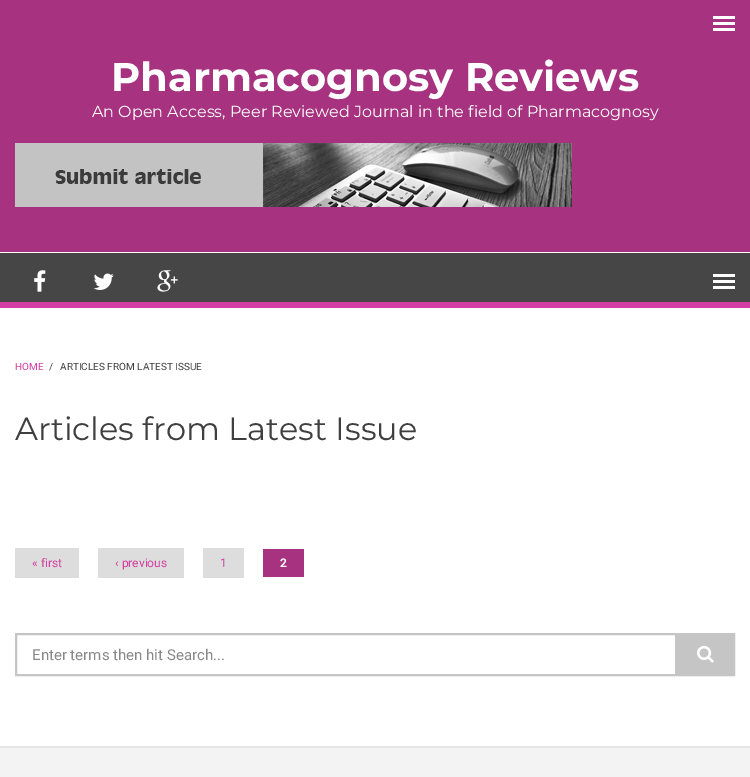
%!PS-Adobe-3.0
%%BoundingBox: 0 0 750 777
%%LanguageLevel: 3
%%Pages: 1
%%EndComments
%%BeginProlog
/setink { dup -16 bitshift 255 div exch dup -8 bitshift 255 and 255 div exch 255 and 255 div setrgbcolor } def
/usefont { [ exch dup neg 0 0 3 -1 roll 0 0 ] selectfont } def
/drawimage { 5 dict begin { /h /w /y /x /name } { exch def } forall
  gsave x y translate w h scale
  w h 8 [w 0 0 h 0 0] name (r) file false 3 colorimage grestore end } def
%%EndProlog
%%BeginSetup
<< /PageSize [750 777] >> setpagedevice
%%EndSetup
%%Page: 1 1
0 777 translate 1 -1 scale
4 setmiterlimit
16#F3F3F3 setink
0 0 750 777 rectfill
[
    [0 0 750 252 16#A73280]
    [713 16 22 3 16#FFFFFF]
    [713 22 22 3 16#FFFFFF]
    [713 28 22 3 16#FFFFFF]
    [0 252 750 1 16#FFFFFF]
] { aload pop setink rectfill } forall
/Montserrat-Bold 40 usefont
111 91 moveto (Pharmacognosy Reviews) show
/Montserrat-Regular 16 usefont
92 117 moveto (An Open Access, Peer Reviewed Journal in the field of Pharmacognosy) show
(img1.raw) 15 143 557 64 drawimage
16#464646 setink
0 253 750 49 rectfill
16#D33FA2 setink
0 302 750 6 rectfill
(img2.raw) 34 270 12 22 drawimage
(img3.raw) 93 273 21 17 drawimage
(img4.raw) 157 270 21 22 drawimage
[
    [713 274 22 3 16#FFFFFF]
    [713 280 22 3 16#FFFFFF]
    [713 286 22 3 16#FFFFFF]
    [0 308 750 438 16#FFFFFF]
    [0 746 750 2 16#E5E5E5]
] { aload pop setink rectfill } forall
/Roboto-Regular 10 usefont
16#D33FA2 setink
15 370 moveto (HOME) show
16#3F3F3F setink
49 370 moveto (/) show
60 370 moveto (ARTICLES FROM LATEST ISSUE) show
/Montserrat-Regular 32 usefont
15 440 moveto (Articles from Latest Issue) show
16#DDDDDD setink
15 548 64 30 rectfill
/Roboto-Regular 12 usefont
16#D33FA2 setink
32 567 moveto (« first) show
16#DDDDDD setink
98 548 86 30 rectfill
16#D33FA2 setink
115 567 moveto (‹ previous) show
16#DDDDDD setink
203 548 41 30 rectfill
16#D33FA2 setink
220 567 moveto (1) show
16#A73280 setink
263 549 41 28 rectfill
/Roboto-Bold 12 usefont
16#FFFFFF setink
280 567 moveto (2) show
16#C5C5C5 setink
2 setlinewidth
16 634 718 41 rectstroke
/Roboto-Regular 15 usefont
16#898989 setink
32 660 moveto (Enter terms then hit Search...) show
16#C5C5C5 setink
675 635 58 39 rectfill
(img5.raw) 697 645 17 18 drawimage
showpage
%%EOF
